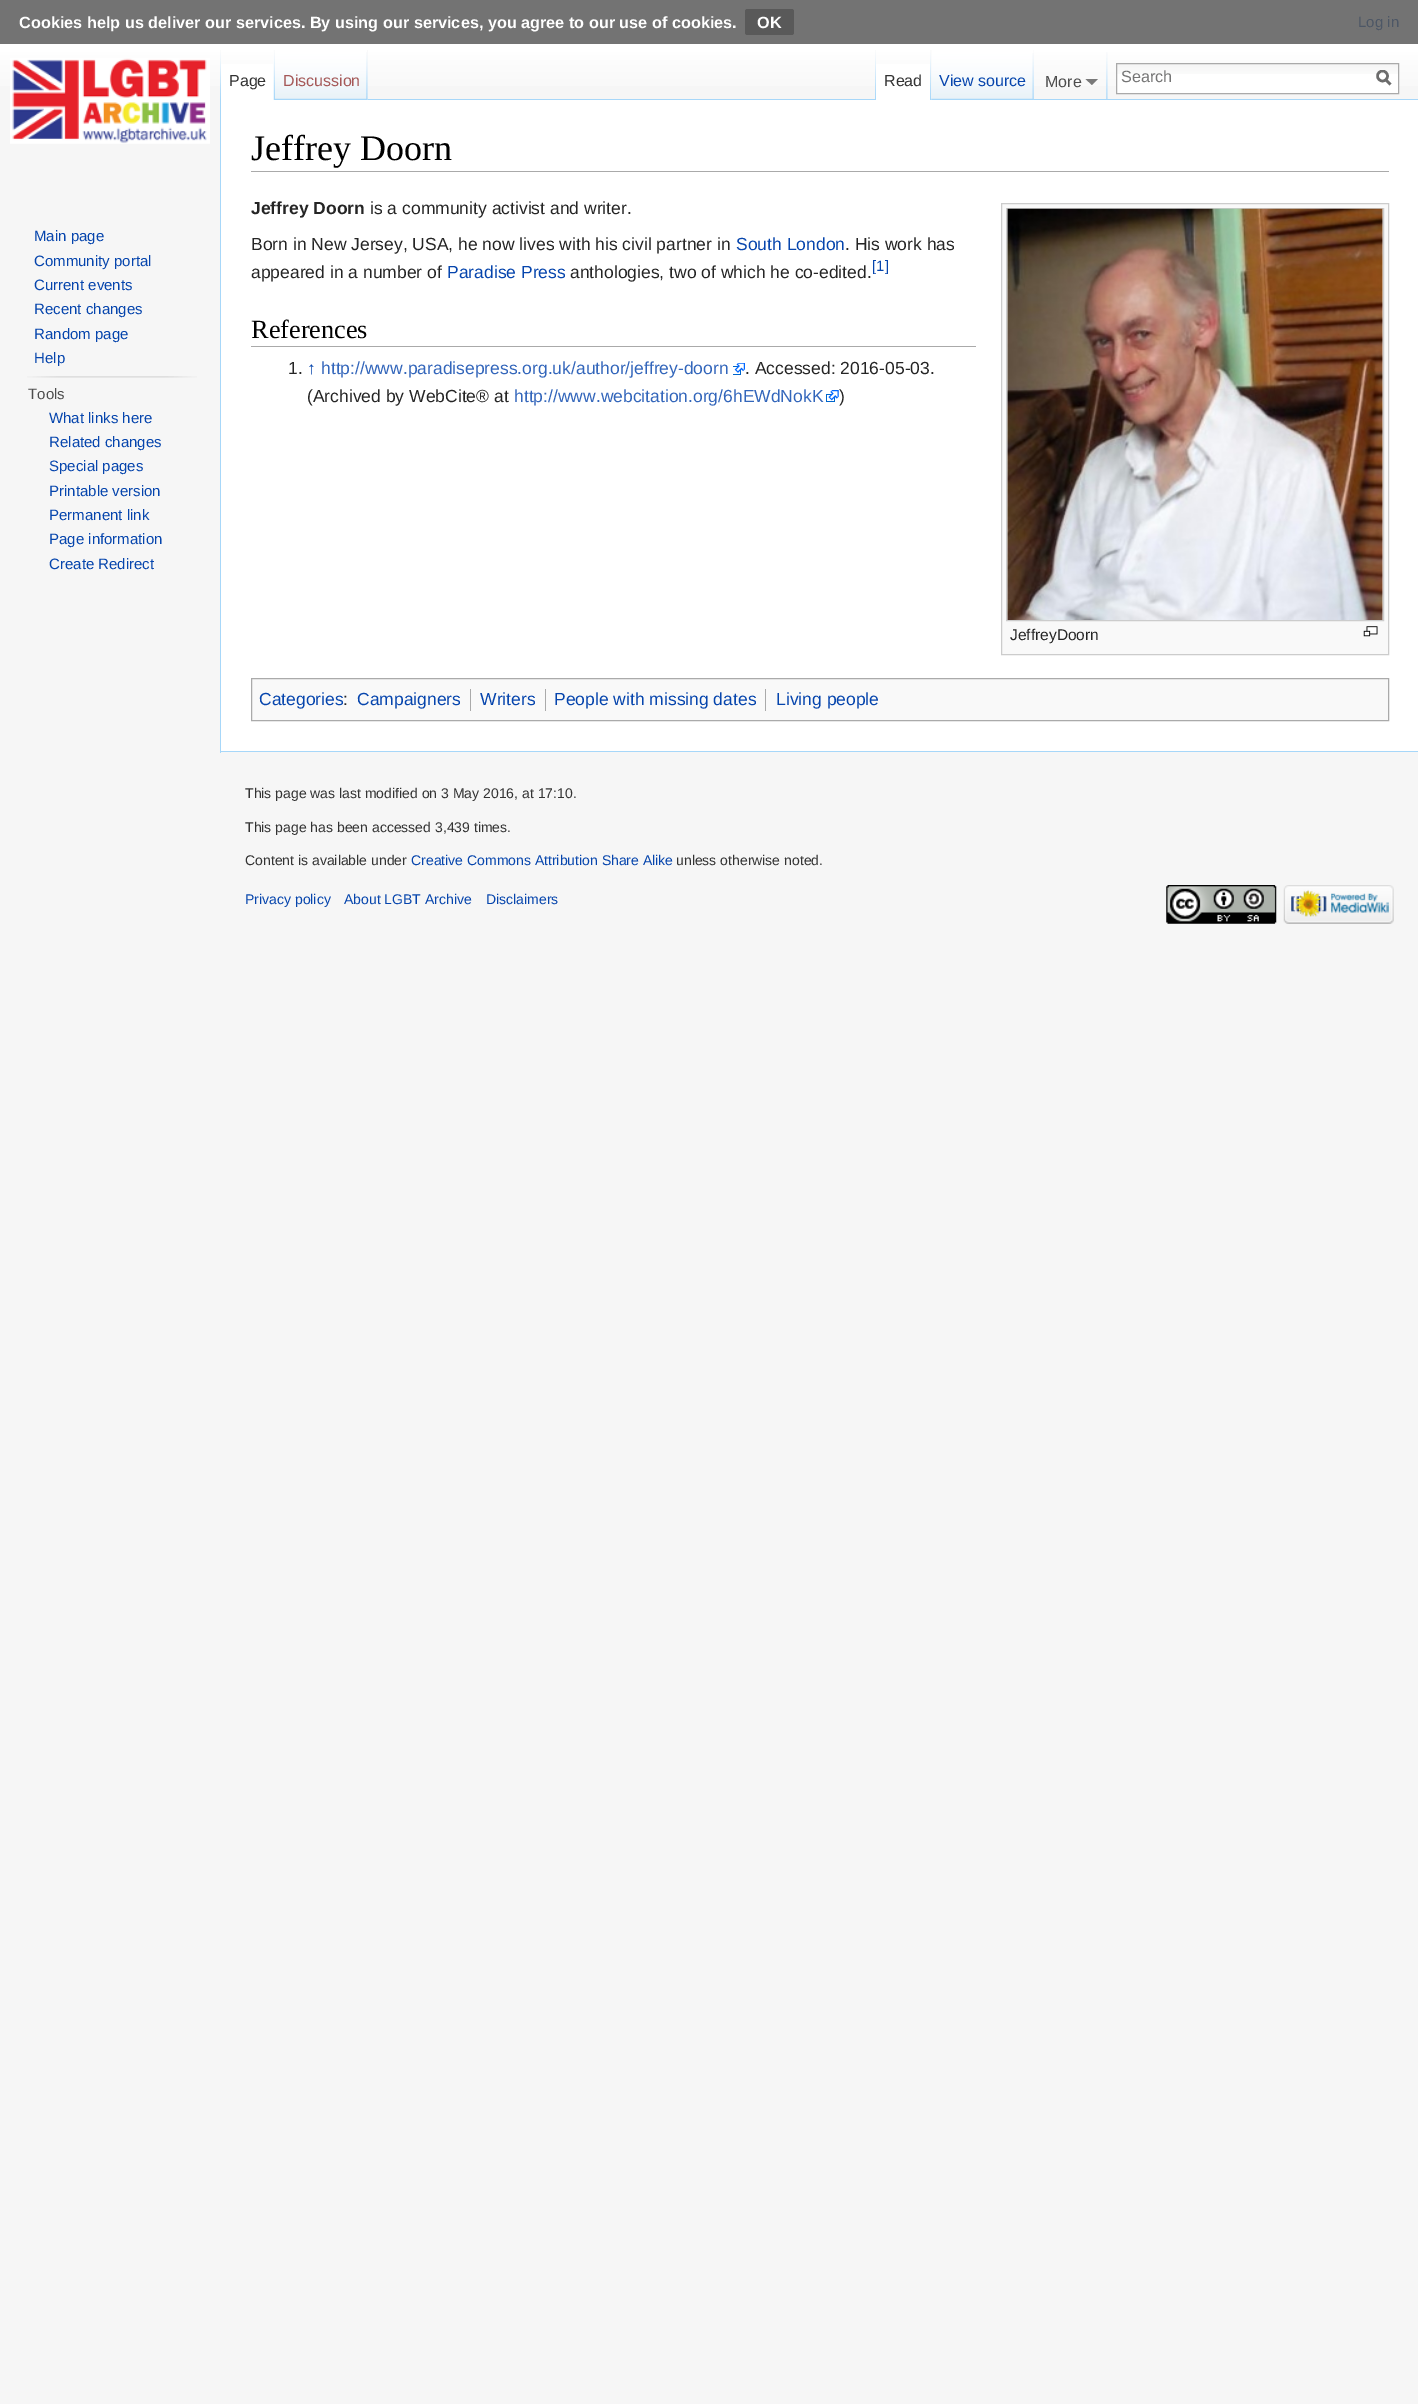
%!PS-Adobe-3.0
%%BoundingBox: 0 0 1418 2404
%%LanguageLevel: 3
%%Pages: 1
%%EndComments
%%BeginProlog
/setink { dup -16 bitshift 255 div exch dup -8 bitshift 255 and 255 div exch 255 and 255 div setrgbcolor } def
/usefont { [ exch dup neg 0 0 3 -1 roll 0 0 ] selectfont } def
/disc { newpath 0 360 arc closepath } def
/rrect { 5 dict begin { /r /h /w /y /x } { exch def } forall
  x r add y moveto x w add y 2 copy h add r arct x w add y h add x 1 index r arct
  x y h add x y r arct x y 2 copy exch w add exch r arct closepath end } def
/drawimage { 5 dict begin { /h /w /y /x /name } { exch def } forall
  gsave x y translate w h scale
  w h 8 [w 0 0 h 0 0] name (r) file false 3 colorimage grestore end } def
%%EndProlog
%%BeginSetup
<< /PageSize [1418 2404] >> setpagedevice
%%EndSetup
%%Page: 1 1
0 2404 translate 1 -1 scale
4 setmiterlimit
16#F6F6F6 setink
0 0 1418 2404 rectfill
gsave 0 44 moveto 1418 44 lineto 1418 86 lineto 0 86 lineto closepath clip newpath
<< /ShadingType 2 /ColorSpace /DeviceRGB /Coords [709 0 709 100] /Extend [true true] /Function << /FunctionType 3 /Domain [0 1] /Functions [<< /FunctionType 2 /Domain [0 1] /C0 [1 1 1] /C1 [1 1 1] /N 1 >> << /FunctionType 2 /Domain [0 1] /C0 [1 1 1] /C1 [0.965 0.965 0.965] /N 1 >>] /Bounds [0.5] /Encode [0 1 0 1] >> >> shfill grestore
gsave 0 0 moveto 1418 0 lineto 1418 44 lineto 0 44 lineto closepath clip newpath
<< /ShadingType 2 /ColorSpace /DeviceRGB /Coords [709 0 709 100] /Extend [true true] /Function << /FunctionType 3 /Domain [0 1] /Functions [<< /FunctionType 2 /Domain [0 1] /C0 [0.451 0.451 0.451] /C1 [0.451 0.451 0.451] /N 1 >> << /FunctionType 2 /Domain [0 1] /C0 [0.451 0.451 0.451] /C1 [0.443 0.443 0.443] /N 1 >>] /Bounds [0.5] /Encode [0 1 0 1] >> >> shfill grestore
/LiberationSans-Bold 16.25 usefont
16#FFFFFF setink
19 28 moveto (Cookies help us deliver our services. By using our services, you agree to our use of cookies.) show
16#595959 setink
745 9 49 26 2.5 rrect fill
16#FFFFFF setink
757 28 moveto (OK) show
/LiberationSans-Regular 15 usefont
16#4D5766 setink
1358 27 moveto (Log in) show
(img1.raw) 220 50 1 49 drawimage
16#FFFFFF setink
221 64 53 36 rectfill
(img2.raw) 273 50 2 50 drawimage
/LiberationSans-Regular 16 usefont
16#333333 setink
229 86 moveto (Page) show
16#F3F3F3 setink
367 50 1 50 rectfill
(img3.raw) 275 50 93 50 drawimage
(img4.raw) 366 52 2 48 drawimage
16#A55858 setink
283 86 moveto (Discussion) show
(img1.raw) 875 50 1 49 drawimage
(img5.raw) 1033 52 1 47 drawimage
16#A7D7F9 setink
368 99 1050 1 rectfill
16#FFFFFF setink
876 64 56 36 rectfill
(img6.raw) 930 50 2 50 drawimage
16#333333 setink
884 86 moveto (Read) show
(img7.raw) 931 50 103 50 drawimage
(img8.raw) 1032 53 2 47 drawimage
16#0645AD setink
939 86 moveto (View source) show
(img9.raw) 1106 52 2 47 drawimage
16#4D4D4D setink
1045 87 moveto (More) show
16#797979 setink
1098 79 moveto 1092 85 lineto 1085.5 79 lineto closepath fill
16#FFFFFF setink
1117 74 281 19 rectfill
(img10.raw) 1117 64 281 10 drawimage
16#AAAAAA setink
1116.5 63.5 282 30 rectstroke
/LiberationSans-Regular 16.25 usefont
16#757575 setink
1121 82 moveto (Search) show
16#6C6C6C setink
2.5 setlinewidth
1390.5 84.5 moveto 1385.5 79.5 lineto stroke
gsave
1376 70 15 16 rectclip
1382.5 76 5 disc stroke
grestore
(img11.raw) 10 58 200 86 drawimage
/LiberationSans-Regular 15 usefont
16#0645AD setink
[
    [(Main page) 34 241]
    [(Community portal) 34 266]
    [(Current events) 34 290]
    [(Recent changes) 34 314]
    [(Random page) 34 339]
    [(Help) 34 363]
] { aload pop moveto show } forall
(img12.raw) 27 376 170 2 drawimage
16#4D4D4D setink
28 399 moveto (Tools) show
16#0645AD setink
[
    [(What links here) 49 423]
    [(Related changes) 49 447]
    [(Special pages) 49 471]
    [(Printable version) 49 496]
    [(Permanent link) 49 520]
    [(Page information) 49 544]
    [(Create Redirect) 49 569]
] { aload pop moveto show } forall
[
    [221 100 1197 651 16#FFFFFF]
    [220 751 1198 1 16#A7D7F9]
    [220 99 1 654 16#A7D7F9]
    [251 171 1138 1 16#AAAAAA]
] { aload pop setink rectfill } forall
/LiberationSerif-Regular 36 usefont
16#000000 setink
251 160 moveto (Jeffrey Doorn) show
/LiberationSans-Bold 17.5 usefont
16#252525 setink
251 214 moveto (Jeffrey Doorn) show
/LiberationSans-Regular 17.5 usefont
370 214 moveto (is a community activist and writer.) show
251 250 moveto (Born in New Jersey, USA, he now lives with his civil partner in) show
16#0645AD setink
736 250 moveto (South London) show
16#252525 setink
845 250 moveto (. His work has) show
251 278 moveto (appeared in a number of) show
16#0645AD setink
447 278 moveto (Paradise Press) show
16#252525 setink
570 278 moveto (anthologies, two of which he co-edited.) show
/LiberationSans-Regular 15 usefont
16#0645AD setink
872 271 moveto ([1]) show
16#AAAAAA setink
251 346 725 1 rectfill
/LiberationSerif-Regular 26.25 usefont
16#000000 setink
251 338 moveto (References) show
/LiberationSans-Regular 17.5 usefont
16#252525 setink
288 374 moveto (1.) show
16#0645AD setink
307 374 moveto (↑) show
16#3366BB setink
321 374 moveto (http://www.paradisepress.org.uk/author/jeffrey-doorn) show
(img13.raw) 733 363 12 12 drawimage
16#252525 setink
745 374 moveto (. Accessed: 2016-05-03.) show
307 402 moveto (\(Archived by WebCite® at) show
16#3366BB setink
514 402 moveto (http://www.webcitation.org/6hEWdNokK) show
(img14.raw) 826 390 13 12 drawimage
16#252525 setink
839 402 moveto (\)) show
16#F9F9F9 setink
1001.5 203.5 moveto 1388.5 203.5 lineto 1388.5 654.5 lineto 1001.5 654.5 lineto closepath gsave fill grestore
16#CCCCCC setink
1 setlinewidth
stroke
1006.5 208.5 377 412 rectstroke
(img15.raw) 1007 208 376 412 drawimage
/LiberationSans-Regular 15.5 usefont
16#252525 setink
1010 640 moveto (JeffreyDoorn) show
(img16.raw) 1363 626 15 11 drawimage
16#F9F9F9 setink
251.5 678.5 moveto 1388.5 678.5 lineto 1388.5 720.5 lineto 251.5 720.5 lineto closepath gsave fill grestore
16#AAAAAA setink
stroke
/LiberationSans-Regular 17.5 usefont
16#0645AD setink
259 705 moveto (Categories) show
16#252525 setink
343 705 moveto (:) show
16#0645AD setink
357 705 moveto (Campaigners) show
16#AAAAAA setink
470 689 1 22 rectfill
16#0645AD setink
480 705 moveto (Writers) show
16#AAAAAA setink
545 689 1 22 rectfill
16#0645AD setink
554 705 moveto (People with missing dates) show
16#AAAAAA setink
765 689 1 22 rectfill
16#0645AD setink
776 705 moveto (Living people) show
/LiberationSans-Regular 14 usefont
16#333333 setink
[
    [(This page was last modified on 3 May 2016, at 17:10.) 245 798]
    [(This page has been accessed 3,439 times.) 245 832]
    [(Content is available under) 245 865]
] { aload pop moveto show } forall
16#0645AD setink
411 865 moveto (Creative Commons Attribution Share Alike) show
16#333333 setink
676 865 moveto (unless otherwise noted.) show
16#0645AD setink
[
    [(Privacy policy) 245 904]
    [(About LGBT Archive) 344 904]
    [(Disclaimers) 486 904]
] { aload pop moveto show } forall
(img17.raw) 1166 885 111 39 drawimage
(img18.raw) 1283 885 111 39 drawimage
showpage
%%EOF
